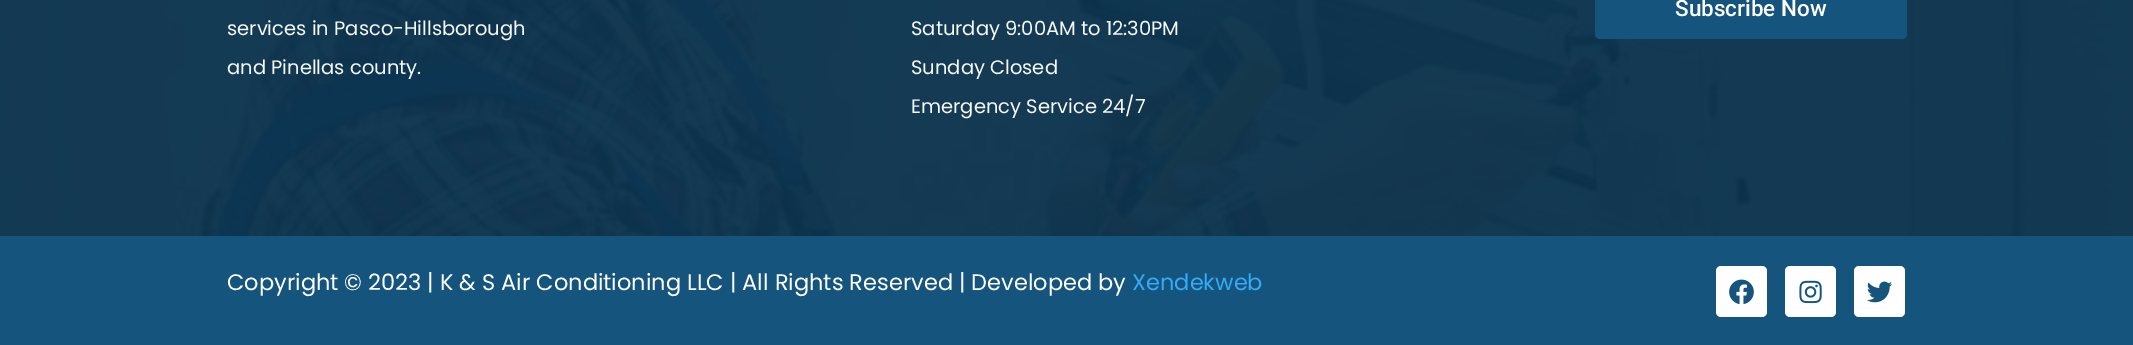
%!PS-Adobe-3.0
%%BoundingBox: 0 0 2133 345
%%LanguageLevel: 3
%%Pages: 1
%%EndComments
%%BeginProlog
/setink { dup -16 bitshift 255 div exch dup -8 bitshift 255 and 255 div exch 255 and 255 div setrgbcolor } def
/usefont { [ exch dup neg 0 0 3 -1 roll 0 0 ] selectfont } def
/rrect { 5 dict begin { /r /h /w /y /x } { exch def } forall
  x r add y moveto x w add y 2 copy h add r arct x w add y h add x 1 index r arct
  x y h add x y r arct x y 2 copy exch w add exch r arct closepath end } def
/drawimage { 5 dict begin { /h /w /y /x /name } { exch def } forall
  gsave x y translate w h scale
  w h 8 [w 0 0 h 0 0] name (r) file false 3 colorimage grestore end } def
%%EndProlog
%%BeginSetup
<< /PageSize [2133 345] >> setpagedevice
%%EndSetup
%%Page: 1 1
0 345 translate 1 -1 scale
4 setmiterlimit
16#FFFFFF setink
0 0 2133 345 rectfill
(img1.raw) 0 0 2133 236 drawimage
16#14547D setink
1595 -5 312 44 5 rrect fill
/Roboto-Medium 22.5 usefont
16#FFFFFF setink
1675 16 moveto (Subscribe Now) show
/Poppins-Regular 19.5 usefont
16#F7FAFC setink
[
    [(services in Pasco-Hillsborough) 227 35]
    [(and Pinellas county.) 227 74]
    [(Saturday 9:00AM to 12:30PM) 911 35]
    [(Sunday Closed) 911 74]
    [(Emergency Service 24/7) 911 113]
] { aload pop moveto show } forall
16#14547D setink
0 236 2133 109 rectfill
/Poppins-Regular 22.5 usefont
16#FFFFFF setink
227 290 moveto (Copyright © 2023 | K & S Air Conditioning LLC | All Rights Reserved | Developed by) show
16#35AAF5 setink
1132 290 moveto (Xendekweb) show
16#FFFFFF setink
1716 266 51 51 5 rrect fill
(img2.raw) 1729 279 25 26 drawimage
1785 266 51 51 5 rrect fill
(img3.raw) 1799 280 23 24 drawimage
1854 266 51 51 5 rrect fill
(img4.raw) 1867 281 26 22 drawimage
showpage
%%EOF
